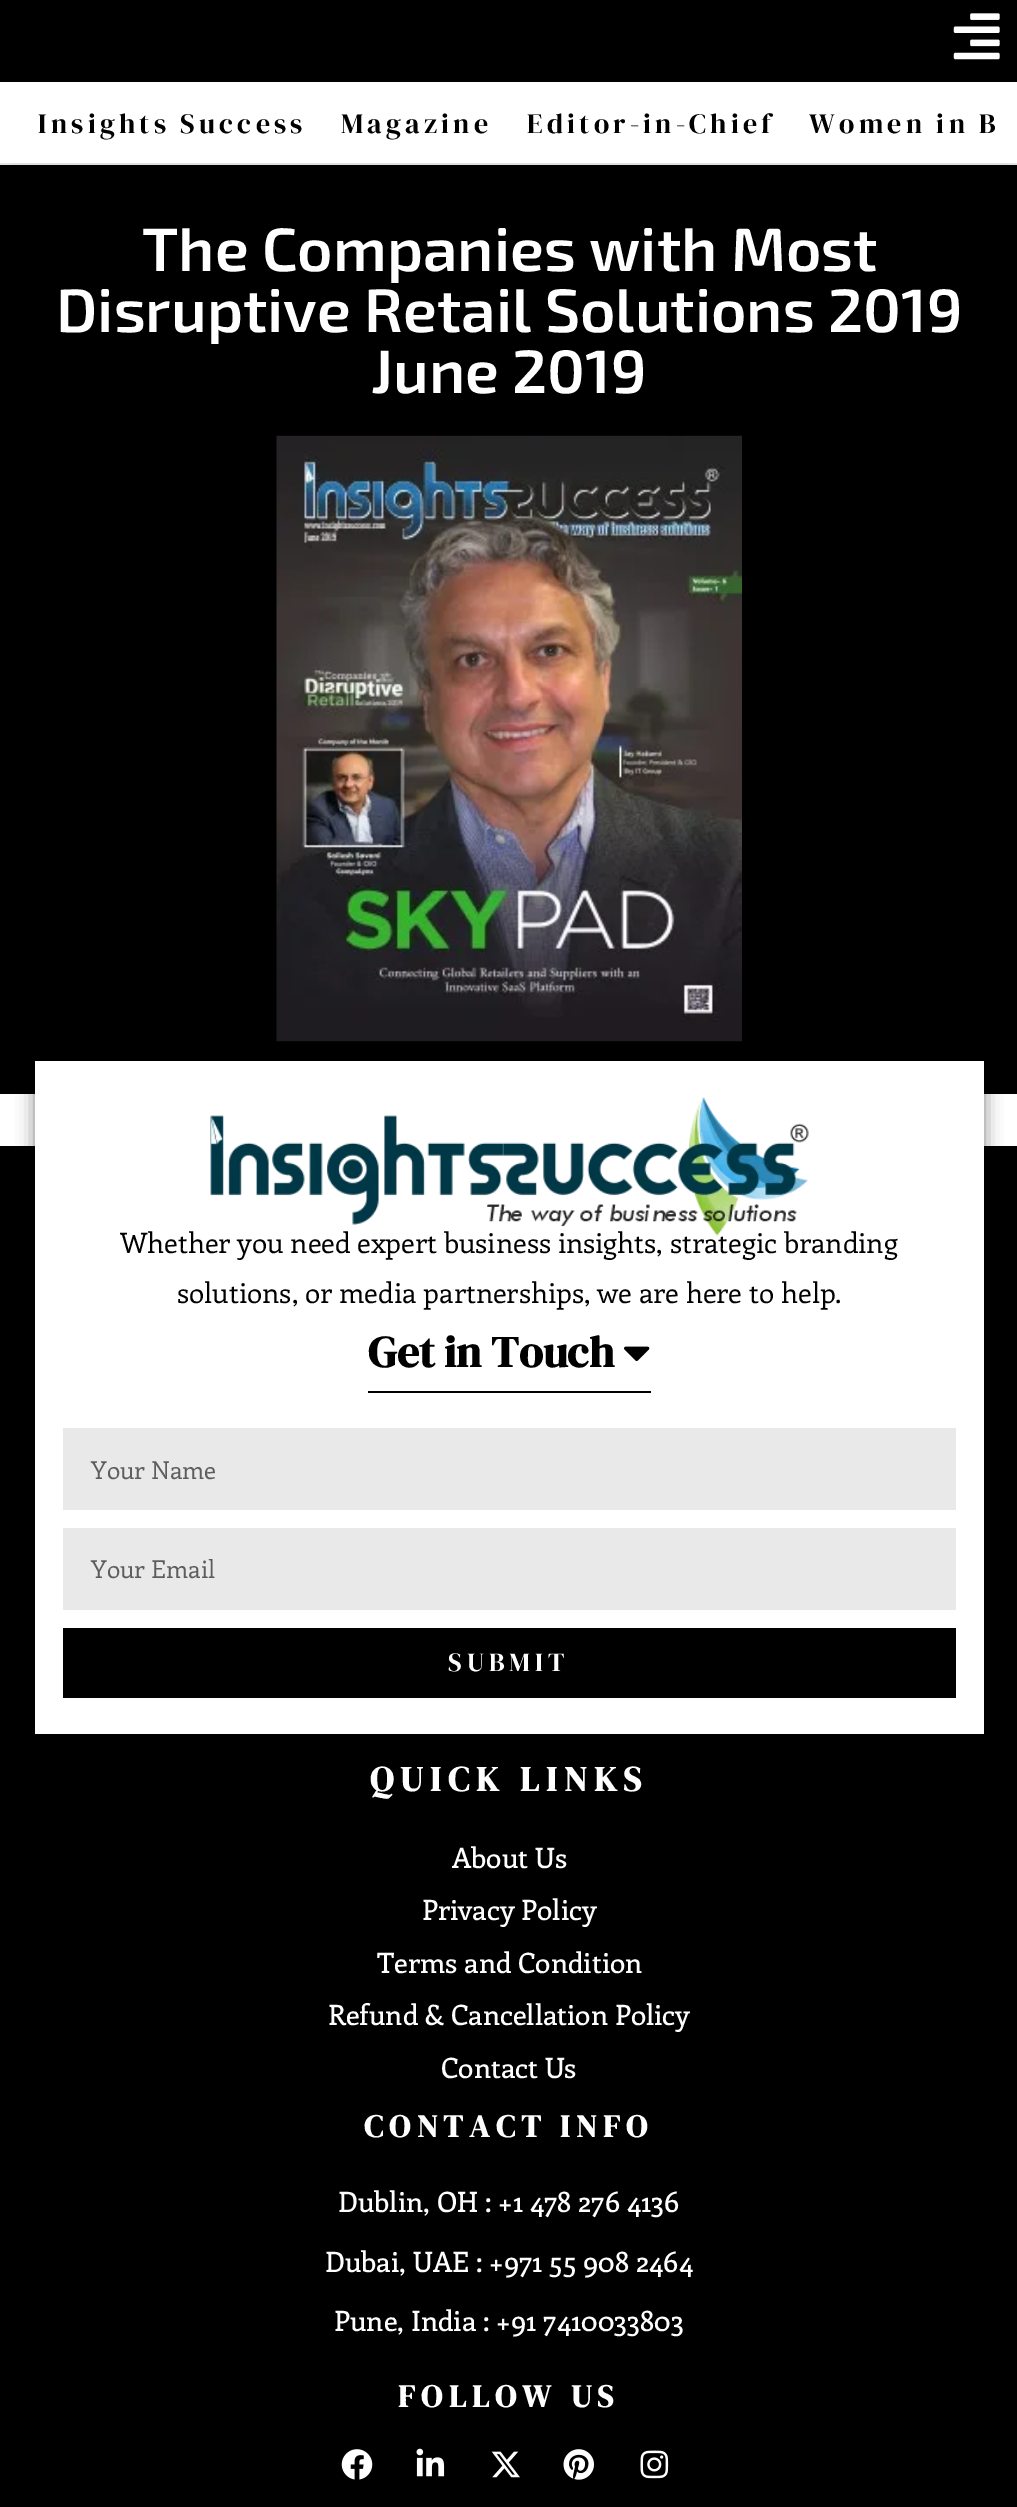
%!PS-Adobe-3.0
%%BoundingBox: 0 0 1017 2507
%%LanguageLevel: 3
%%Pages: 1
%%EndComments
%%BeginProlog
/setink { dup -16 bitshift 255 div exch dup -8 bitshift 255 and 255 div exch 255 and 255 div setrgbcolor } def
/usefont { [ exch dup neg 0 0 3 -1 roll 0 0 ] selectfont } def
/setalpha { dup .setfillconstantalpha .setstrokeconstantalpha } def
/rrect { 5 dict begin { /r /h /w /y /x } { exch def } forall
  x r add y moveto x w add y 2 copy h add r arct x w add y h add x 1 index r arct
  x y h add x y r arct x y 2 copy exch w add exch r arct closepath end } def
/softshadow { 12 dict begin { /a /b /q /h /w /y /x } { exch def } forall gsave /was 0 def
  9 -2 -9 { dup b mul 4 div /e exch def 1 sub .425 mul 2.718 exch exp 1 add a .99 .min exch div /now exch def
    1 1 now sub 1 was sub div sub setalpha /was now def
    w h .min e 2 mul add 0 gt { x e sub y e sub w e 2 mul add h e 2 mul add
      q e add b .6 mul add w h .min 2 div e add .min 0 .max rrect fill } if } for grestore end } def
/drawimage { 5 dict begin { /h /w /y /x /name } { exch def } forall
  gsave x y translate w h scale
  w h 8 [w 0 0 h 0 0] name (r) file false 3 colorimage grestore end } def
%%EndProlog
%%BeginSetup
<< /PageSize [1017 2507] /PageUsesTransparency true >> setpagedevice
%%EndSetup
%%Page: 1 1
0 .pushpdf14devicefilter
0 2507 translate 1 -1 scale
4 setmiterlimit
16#000000 setink
0 0 1017 2507 rectfill
16#F1F1F1 setink
0 163 1017 2 rectfill
16#000000 setink
0 9 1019 163 0 26 0.1 softshadow
(img1.raw) 953 13 47 47 drawimage
16#FFFFFF setink
0 82 1017 81 rectfill
/DMSerifDisplay-Regular 28 usefont
16#000000 setink
38 133 moveto 4.25 0 (Insights Success) ashow
341 133 moveto 4.25 0 (Magazine) ashow
527 133 moveto 4.25 0 (Editor-in-Chief) ashow
809 133 moveto 4.25 0 (Women in B) ashow
/Exo2-SemiBold 61.25 usefont
16#FFFFFF setink
[
    [(The Companies with Most) 142 271]
    [(Disruptive Retail Solutions 2019) 56 332]
    [(June 2019) 371 393]
] { aload pop moveto show } forall
(img2.raw) 276 435 466 607 drawimage
0 1094 1017 52 rectfill
16#000000 setink
35 1061 949 673 0 9 0.5 softshadow
16#FFFFFF setink
35 1061 949 673 rectfill
(img3.raw) 210 1097 599 139 drawimage
/Enriqueta-Regular 28 usefont
16#000000 setink
120 1253 moveto (Whether you need expert business insights, strategic branding) show
177 1303 moveto (solutions, or media partnerships, we are here to help.) show
368 1391 283 2 rectfill
/DMSerifDisplay-Bold 43.75 usefont
368 1367 moveto (Get in Touch) show
(img4.raw) 624 1346 26 16 drawimage
16#E9E9E9 setink
63 1428 893 82 rectfill
/Enriqueta-Regular 24.5 usefont
16#5D5D5D setink
91 1479 moveto (Your Name) show
16#E9E9E9 setink
63 1528 893 82 rectfill
16#5D5D5D setink
91 1578 moveto (Your Email) show
16#000000 setink
63 1628 893 70 rectfill
/DMSerifDisplay-Regular 26.25 usefont
16#FFFFFF setink
448 1671 moveto 5 0 (SUBMIT) ashow
/DMSerifDisplay-Bold 35 usefont
370 1791 moveto 7 0 (QUICK LINKS) ashow
/Enriqueta-Medium 28 usefont
[
    [(About Us) 452 1868]
    [(Privacy Policy) 422 1920]
    [(Terms and Condition) 377 1973]
    [(Refund & Cancellation Policy) 328 2025]
    [(Contact Us) 441 2078]
] { aload pop moveto show } forall
/DMSerifDisplay-Bold 31.5 usefont
364 2137 moveto 6.25 0 (CONTACT INFO) ashow
/Enriqueta-Medium 28 usefont
[
    [(Dublin, OH : +1 478 276 4136) 338 2212]
    [(Dubai, UAE : +971 55 908 2464) 325 2272]
    [(Pune, India : +91 7410033803) 334 2331]
] { aload pop moveto show } forall
/DMSerifDisplay-Bold 31.5 usefont
398 2407 moveto 6.25 0 (FOLLOW US) ashow
(img5.raw) 341 2449 32 31 drawimage
(img6.raw) 416 2448 29 29 drawimage
(img7.raw) 491 2451 29 27 drawimage
(img8.raw) 563 2449 31 31 drawimage
(img9.raw) 640 2450 29 29 drawimage
.poppdf14devicefilter showpage
%%EOF
